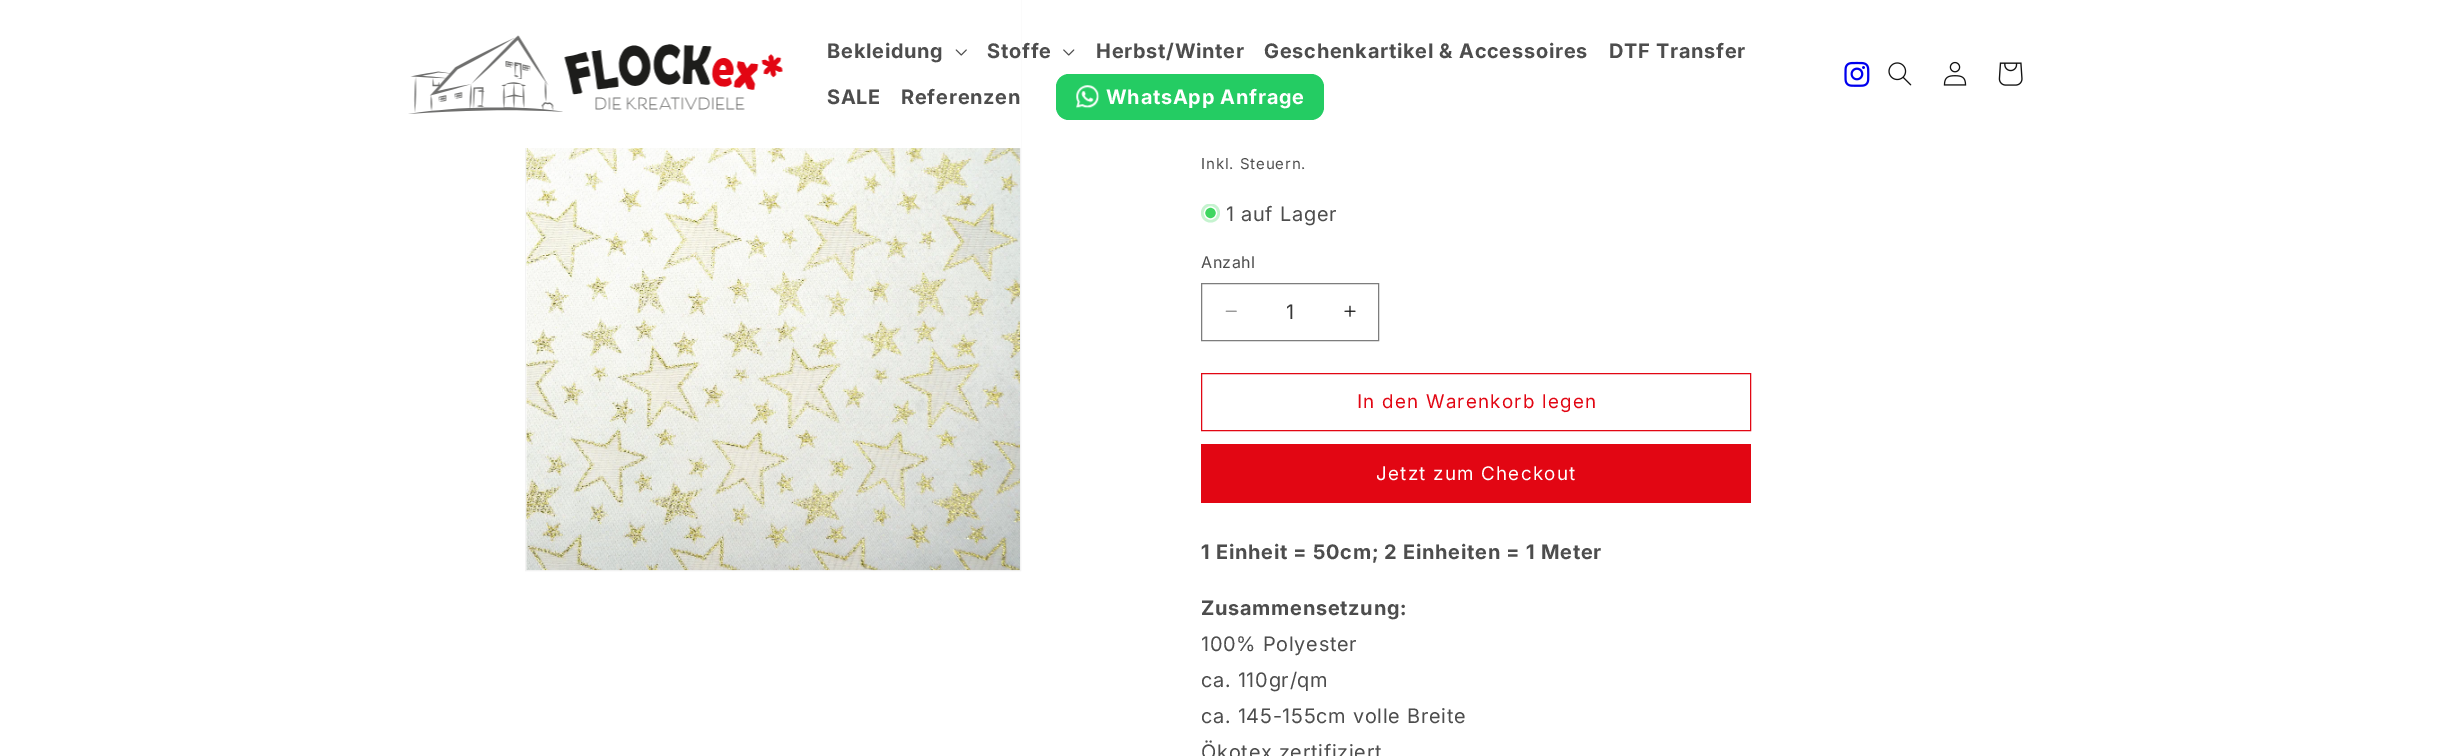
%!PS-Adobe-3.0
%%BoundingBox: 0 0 2440 756
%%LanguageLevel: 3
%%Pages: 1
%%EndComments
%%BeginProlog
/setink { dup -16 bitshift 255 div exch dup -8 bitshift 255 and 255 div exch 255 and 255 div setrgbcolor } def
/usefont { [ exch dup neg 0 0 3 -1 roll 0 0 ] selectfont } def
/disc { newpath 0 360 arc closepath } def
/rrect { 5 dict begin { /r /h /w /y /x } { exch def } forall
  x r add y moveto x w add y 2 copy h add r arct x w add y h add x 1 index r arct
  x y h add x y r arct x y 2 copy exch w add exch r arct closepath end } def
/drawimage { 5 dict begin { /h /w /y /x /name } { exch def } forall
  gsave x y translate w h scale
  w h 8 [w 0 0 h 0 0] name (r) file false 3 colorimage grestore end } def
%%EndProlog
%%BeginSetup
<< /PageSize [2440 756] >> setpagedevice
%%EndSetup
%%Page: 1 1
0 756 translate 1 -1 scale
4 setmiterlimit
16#FFFFFF setink
0 0 2440 756 rectfill
16#F3F3F3 setink
525.5 -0.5 495 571 rectstroke
16#FFFFFF setink
525 0 496 148 rectfill
(img1.raw) 408 35 375 79 drawimage
/Inter-Bold 20 usefont
16#4D4D4D setink
827 58 moveto 0.75 0 (Bekleidung) ashow
(img2.raw) 955 49 12 7 drawimage
987 58 moveto 0.75 0 (Stoffe) ashow
(img3.raw) 1063 49 12 7 drawimage
1096 58 moveto 0.75 0 (Herbst/Winter) ashow
1264 58 moveto 0.75 0 (Geschenkartikel & Accessoires) ashow
1609 58 moveto 0.75 0 (DTF Transfer) ashow
827 104 moveto 0.75 0 (SALE) ashow
901 104 moveto 0.75 0 (Referenzen) ashow
16#24CC63 setink
1056 74 268 46 13 rrect fill
(img4.raw) 1076 85 24 24 drawimage
16#FFFFFF setink
1106 104 moveto 0.75 0 (WhatsApp Anfrage) ashow
(img5.raw) 1844 61 26 26 drawimage
(img6.raw) 1888 62 24 24 drawimage
(img7.raw) 1943 61 24 25 drawimage
(img8.raw) 1998 62 25 24 drawimage
(img9.raw) 526 148 494 423 drawimage
/Inter-Regular 15 usefont
16#4D4D4D setink
1201 169 moveto 0.9 0 (Inkl. Steuern.) ashow
gsave
1201 204 19 19 rectclip
16#C5F3CF setink
1210.5 213 9.5 disc fill
grestore
16#3ED660 setink
1210.5 213 6 disc gsave fill grestore
16#FFFFFF setink
1.2 setlinewidth
stroke
/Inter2-Regular 20 usefont
16#4D4D4D setink
1226 221 moveto 0.75 0 (1 auf Lager) ashow
/Inter-Regular 16 usefont
1201 268 moveto 0.5 0 (Anzahl) ashow
(img10.raw) 1225 310 12 2 drawimage
(img11.raw) 1344 305 12 12 drawimage
16#7D7D7D setink
1 setlinewidth
1201.5 283.5 177 57 rectstroke
/Inter2-Regular 20 usefont
16#363636 setink
1286 319 moveto (1) show
16#E20613 setink
1201.5 373.5 549 57 rectstroke
/Inter-Regular 18.75 usefont
1357 408 moveto 1.25 0 (In den Warenkorb legen) ashow
1201 444 550 59 rectfill
16#FFFFFF setink
1376 480 moveto 1.25 0 (Jetzt zum Checkout) ashow
/Inter-Bold 20 usefont
16#4D4D4D setink
1201 559 moveto 0.75 0 (1 Einheit = 50cm; 2 Einheiten = 1 Meter) ashow
1201 615 moveto 0.75 0 (Zusammensetzung:) ashow
/Inter2-Regular 20 usefont
1201 651 moveto 0.75 0 (100% Polyester) ashow
1201 687 moveto 0.75 0 (ca. 110gr/qm) ashow
1201 723 moveto 0.75 0 (ca. 145-155cm volle Breite) ashow
1201 759 moveto 0.75 0 (Ökotex zertifiziert) ashow
showpage
%%EOF
